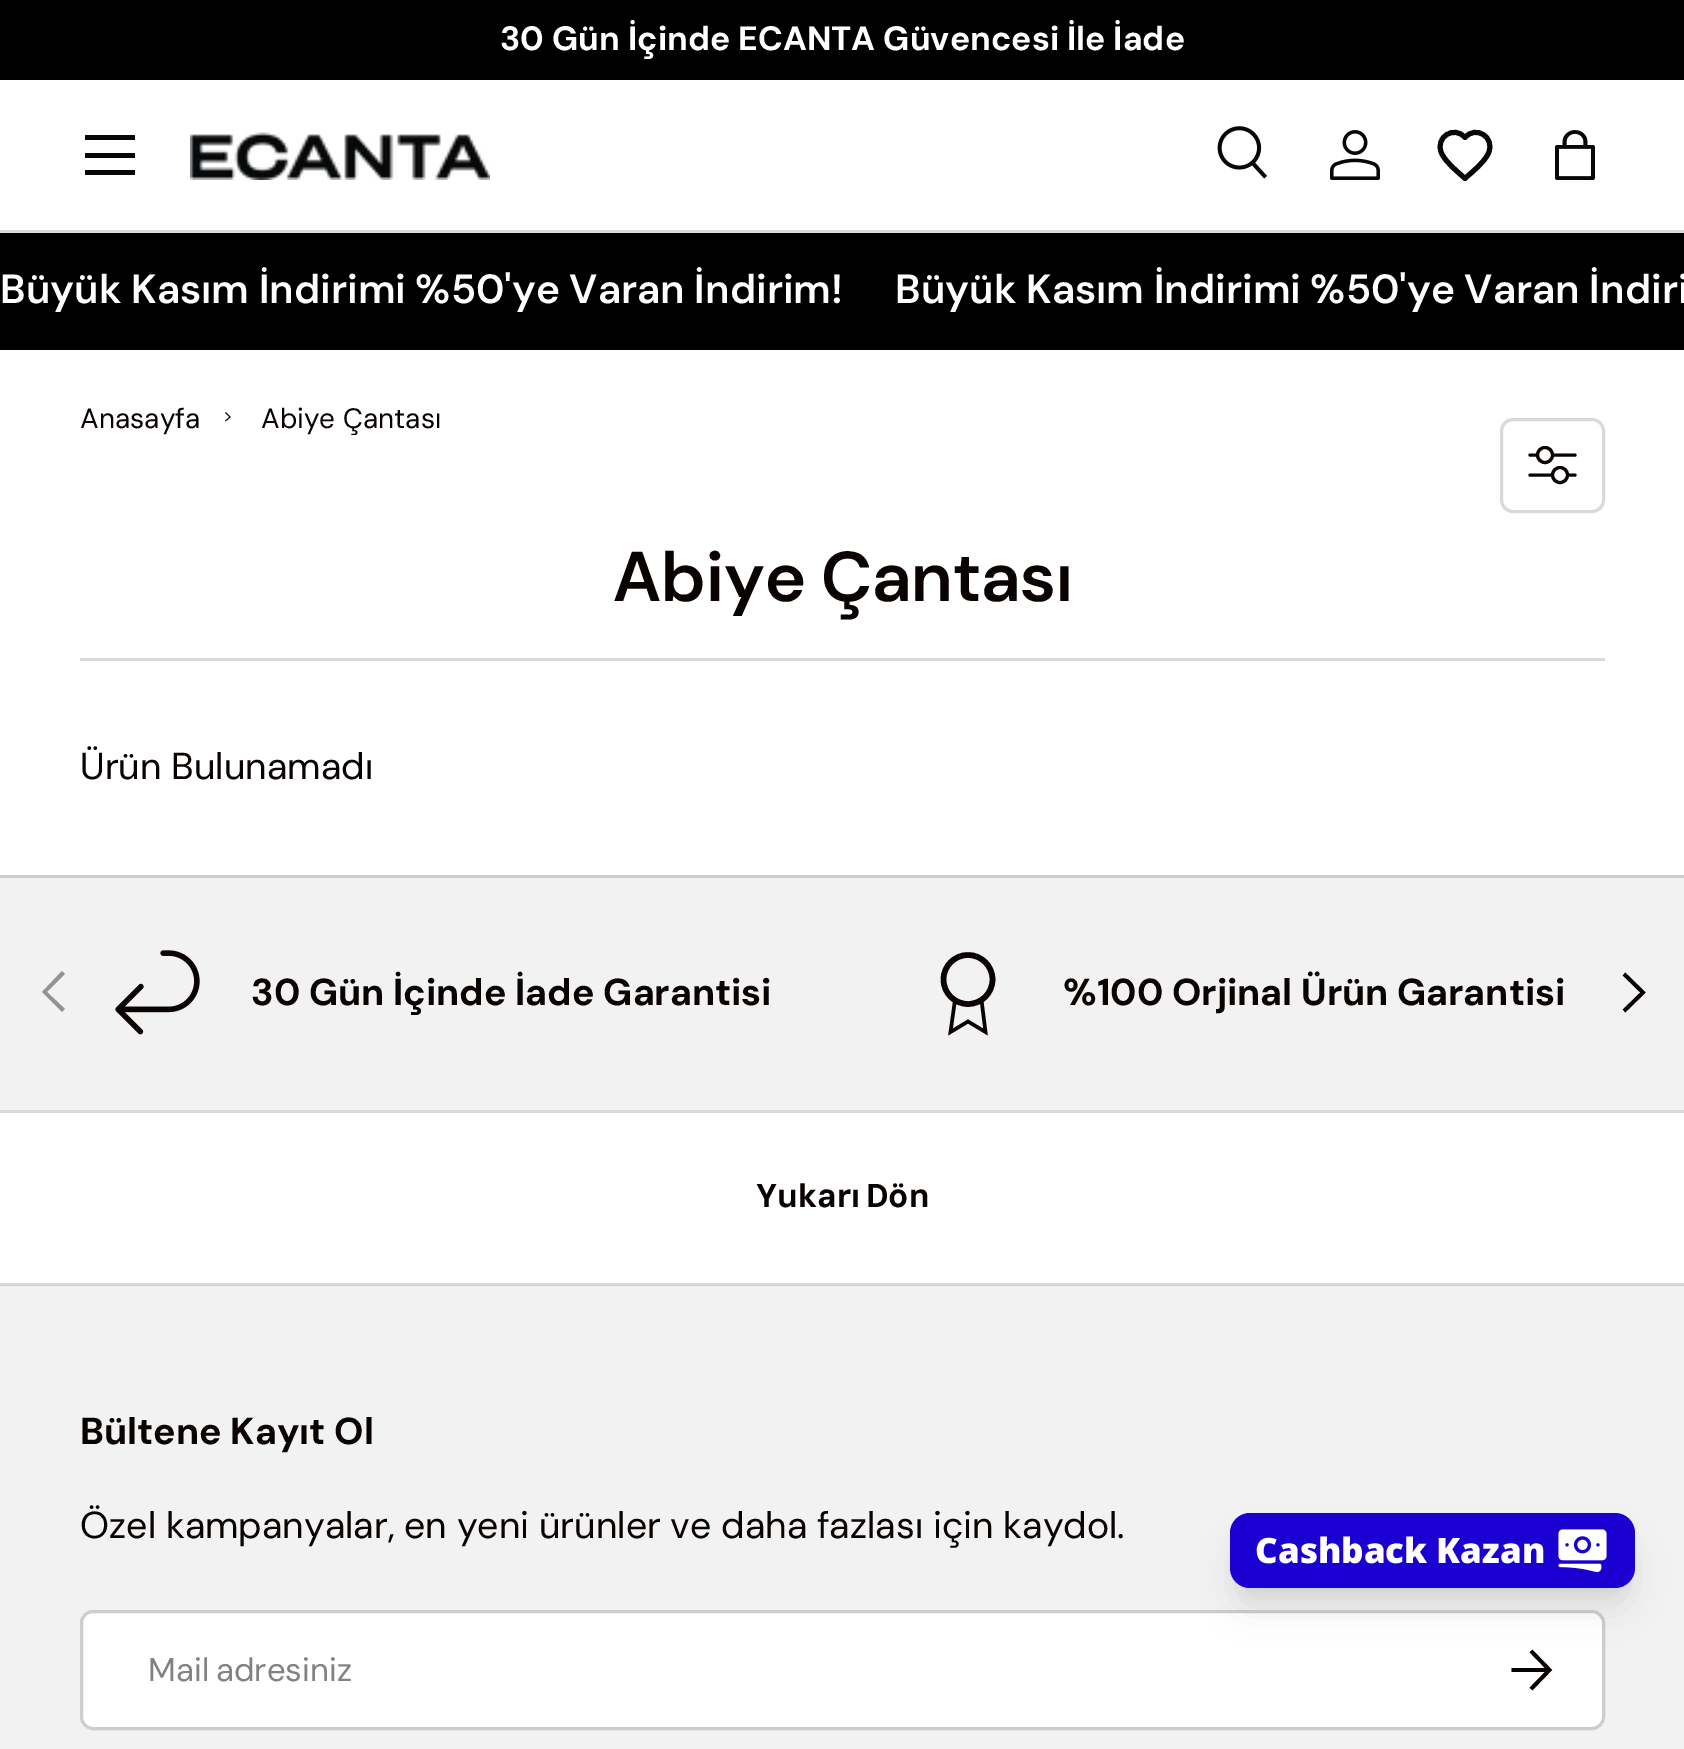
%!PS-Adobe-3.0
%%BoundingBox: 0 0 1684 1749
%%LanguageLevel: 3
%%Pages: 1
%%EndComments
%%BeginProlog
/setink { dup -16 bitshift 255 div exch dup -8 bitshift 255 and 255 div exch 255 and 255 div setrgbcolor } def
/usefont { [ exch dup neg 0 0 3 -1 roll 0 0 ] selectfont } def
/setalpha { dup .setfillconstantalpha .setstrokeconstantalpha } def
/disc { newpath 0 360 arc closepath } def
/rrect { 5 dict begin { /r /h /w /y /x } { exch def } forall
  x r add y moveto x w add y 2 copy h add r arct x w add y h add x 1 index r arct
  x y h add x y r arct x y 2 copy exch w add exch r arct closepath end } def
/softshadow { 12 dict begin { /a /b /q /h /w /y /x } { exch def } forall gsave /was 0 def
  9 -2 -9 { dup b mul 4 div /e exch def 1 sub .425 mul 2.718 exch exp 1 add a .99 .min exch div /now exch def
    1 1 now sub 1 was sub div sub setalpha /was now def
    w h .min e 2 mul add 0 gt { x e sub y e sub w e 2 mul add h e 2 mul add
      q e add b .6 mul add w h .min 2 div e add .min 0 .max rrect fill } if } for grestore end } def
/drawimage { 5 dict begin { /h /w /y /x /name } { exch def } forall
  gsave x y translate w h scale
  w h 8 [w 0 0 h 0 0] name (r) file false 3 colorimage grestore end } def
%%EndProlog
%%BeginSetup
<< /PageSize [1684 1749] /PageUsesTransparency true >> setpagedevice
%%EndSetup
%%Page: 1 1
0 .pushpdf14devicefilter
0 1749 translate 1 -1 scale
4 setmiterlimit
16#FFFFFF setink
0 0 1684 1749 rectfill
16#DAD9D9 setink
0 1283 1684 2 rectfill
16#000000 setink
0 0 1684 80 rectfill
/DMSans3-Bold 33.75 usefont
16#FFFFFF setink
500 50 moveto (30 Gün İçinde ECANTA Güvencesi İle İade) show
[
    [0 230 1684 3 16#DADADA]
    [85 135 50 5 16#070707]
    [85 170 50 5 16#070707]
    [85 153 50 5 16#070707]
] { aload pop setink rectfill } forall
(img1.raw) 190 132 300 48 drawimage
(img2.raw) 1217 126 51 53 drawimage
(img3.raw) 1330 130 50 50 drawimage
5 setlinewidth
1 setlinecap
1 setlinejoin
1465 178.5 moveto 1457 171 1446 163 1441.5 153 curveto 1434.5 137 1454.5 125 1465 137.5 curveto 1475.5 125 1495.5 137 1488.5 153 curveto 1484 163 1473 171 1465 178.5 curveto closepath stroke
(img4.raw) 1555 130 40 50 drawimage
16#000000 setink
0 233 1684 117 rectfill
/DMSans-SemiBold 40.7 usefont
16#FFFFFF setink
0 303 moveto -0.5 0 32 (Büyük Kasım İndirimi %50'ye Varan İndirim!) widthshow
895 303 moveto -0.5 0 32 (Büyük Kasım İndirimi %50'ye Varan İndiri) widthshow
/DMSans-Regular 28 usefont
16#090302 setink
80 428 moveto (Anasayfa) show
0.9 setlinewidth
0 setlinecap
0 setlinejoin
225.5 412.5 moveto 230 417 lineto 225.5 421 lineto stroke
gsave
260 400 183 35 rectclip
261 428 moveto (Abiye Çantası) show
grestore
/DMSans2-SemiBold 70.25 usefont
613 601 moveto -1 0 32 (Abiye Çantası) widthshow
16#DAD9D9 setink
80 658 1525 3 rectfill
3 setlinewidth
1501.5 419.5 102 92 11.5 rrect stroke
16#090302 setink
3.1 setlinewidth
1 setlinecap
1 setlinejoin
1530 455 moveto 1575 455 lineto 1530 475 moveto 1575 475 lineto stroke
16#FFFFFF setink
1545 455 7.5 disc gsave fill grestore
16#090302 setink
0 setlinecap
0 setlinejoin
stroke
16#FFFFFF setink
1560 475 7.5 disc gsave fill grestore
16#090302 setink
stroke
/DMSans2-Regular 37.5 usefont
80 779 moveto (Ürün Bulunamadı) show
16#F2F2F2 setink
0 878 1684 232 rectfill
16#CFCECE setink
0 875 1684 3 rectfill
16#959292 setink
42 992 moveto 62 971 lineto 65 974 lineto 47 992 lineto 65 1009 lineto 62 1012 lineto closepath fill
16#090302 setink
3.8 setlinewidth
1624 974 moveto 1643 992.5 lineto 1624 1011 lineto stroke
(img5.raw) 115 950 85 85 drawimage
/DMSans-Bold 37.5 usefont
251 1005 moveto (30 Gün İçinde İade Garantisi) show
5.6 setlinewidth
968 979.5 24.5 disc stroke
3.5 setlinewidth
955 1000 moveto 950.5 1032 lineto 968 1021.5 lineto 985.5 1032 lineto 981.5 1000 lineto stroke
1063 1005 moveto (%100 Orjinal Ürün Garantisi) show
16#DAD9D9 setink
0 1110 1684 3 rectfill
/DMSans2-Bold 33 usefont
16#090302 setink
756 1207 moveto -2 0 32 (Yukarı Dön) widthshow
16#F2F2F2 setink
0 1286 1684 463 rectfill
16#CFCECE setink
0 1285 1684 1 rectfill
/DMSans-Bold 37.5 usefont
16#090302 setink
80 1444 moveto (Bültene Kayıt Ol) show
/DMSans2-Regular 37.5 usefont
80 1538 moveto -0.25 0 32 (Özel kampanyalar, en yeni ürünler ve daha fazlası için kaydol.) widthshow
16#FFFFFF setink
80 1610 1525 120 13 rrect fill
0.2 setalpha
16#090302 setink
3 setlinewidth
81.5 1611.5 1522 117 11.5 rrect stroke
/DMSans3-Regular 33 usefont
1 setalpha
16#848181 setink
148 1681 moveto -2 0 32 (Mail adresiniz) widthshow
16#090302 setink
3.8 setlinewidth
1511.5 1670 moveto 1548.5 1670 lineto 1531 1651 moveto 1549.5 1670 lineto 1531 1689 lineto stroke
16#000000 setink
1240 1533 385 55 10 7.5 0.1 softshadow
1238 1545 390 60 13 19 0.1 softshadow
16#1A00D1 setink
1230 1513 405 75 20 rrect fill
/OpenSans-ExtraBold 35 usefont
16#FFFFFF setink
1255 1563 moveto (Cashback Kazan) show
(img6.raw) 1558 1529 49 44 drawimage
.poppdf14devicefilter showpage
%%EOF
